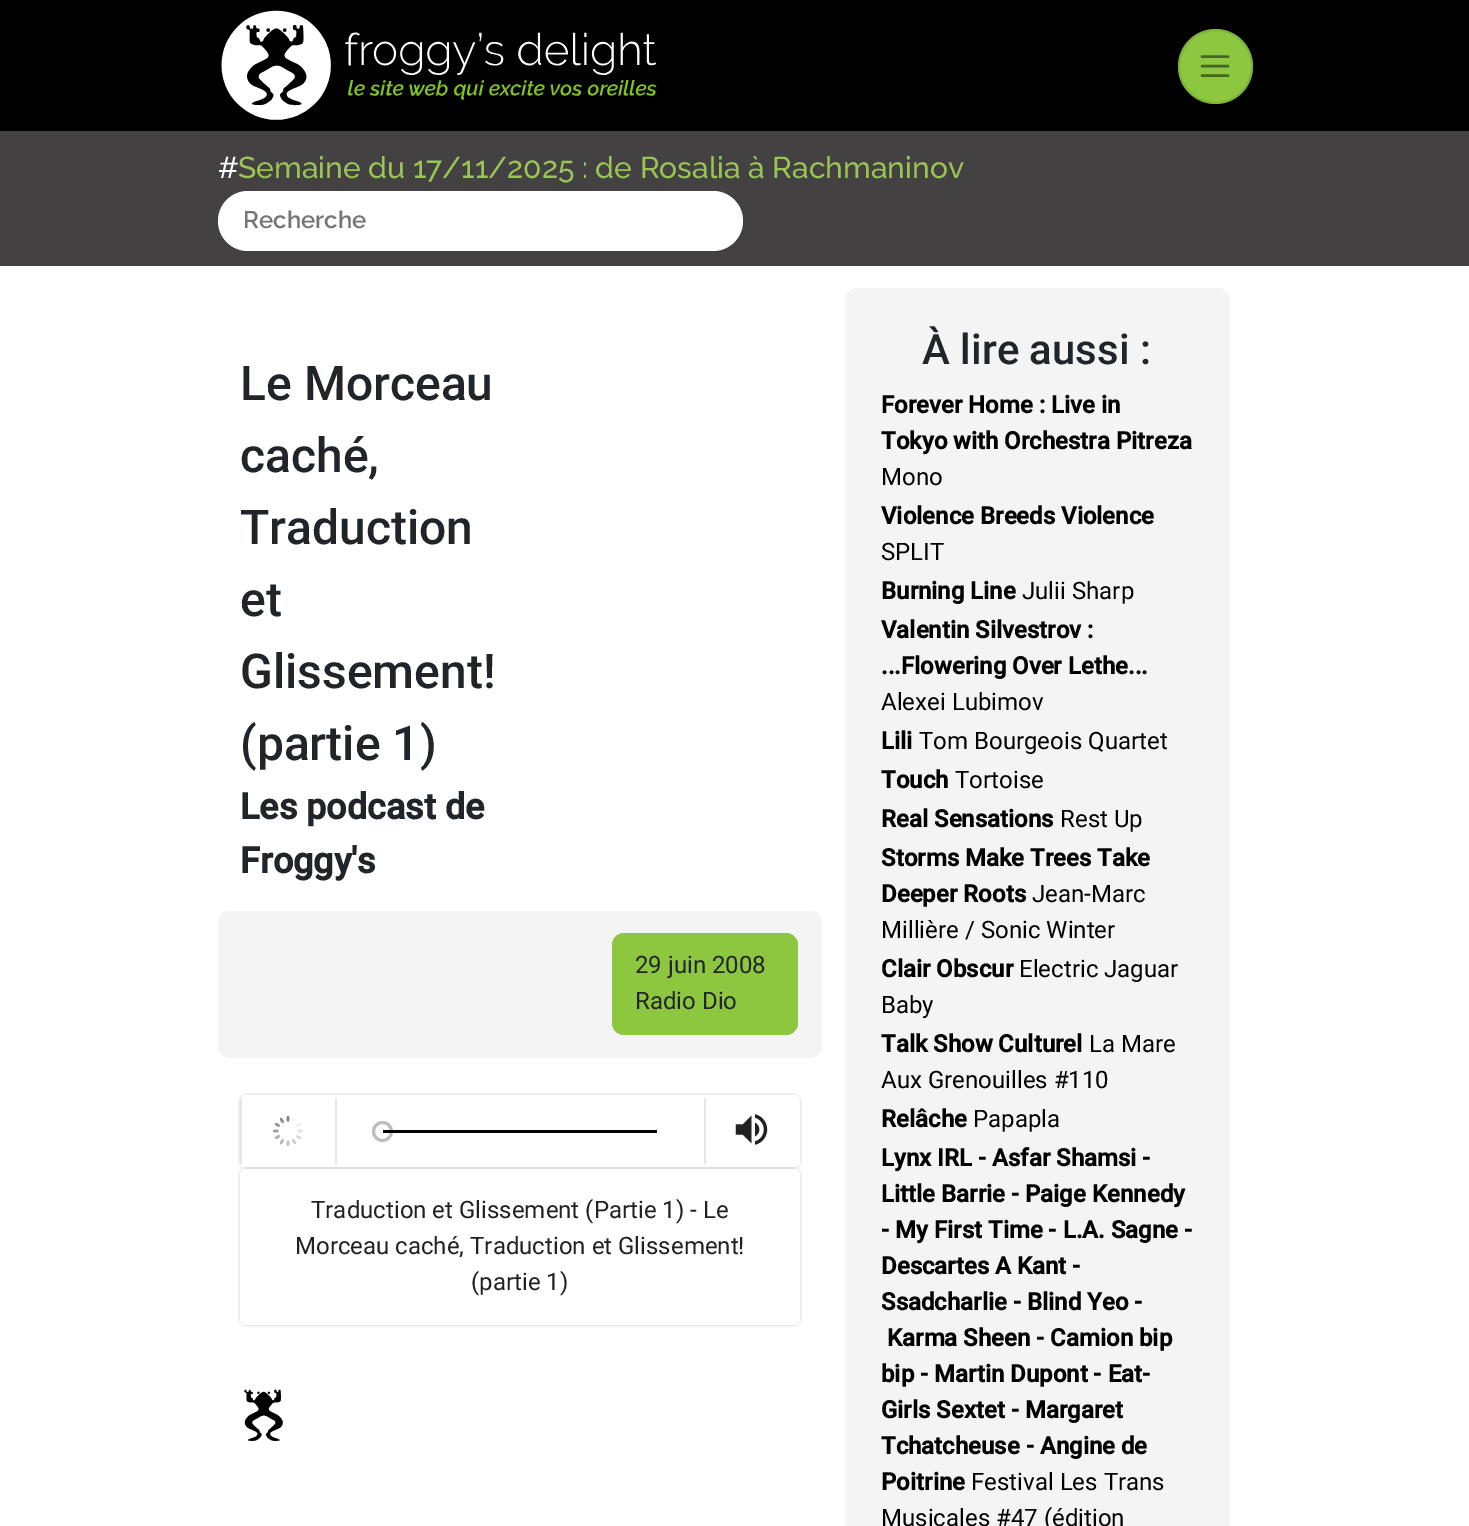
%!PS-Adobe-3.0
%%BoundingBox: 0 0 1469 1526
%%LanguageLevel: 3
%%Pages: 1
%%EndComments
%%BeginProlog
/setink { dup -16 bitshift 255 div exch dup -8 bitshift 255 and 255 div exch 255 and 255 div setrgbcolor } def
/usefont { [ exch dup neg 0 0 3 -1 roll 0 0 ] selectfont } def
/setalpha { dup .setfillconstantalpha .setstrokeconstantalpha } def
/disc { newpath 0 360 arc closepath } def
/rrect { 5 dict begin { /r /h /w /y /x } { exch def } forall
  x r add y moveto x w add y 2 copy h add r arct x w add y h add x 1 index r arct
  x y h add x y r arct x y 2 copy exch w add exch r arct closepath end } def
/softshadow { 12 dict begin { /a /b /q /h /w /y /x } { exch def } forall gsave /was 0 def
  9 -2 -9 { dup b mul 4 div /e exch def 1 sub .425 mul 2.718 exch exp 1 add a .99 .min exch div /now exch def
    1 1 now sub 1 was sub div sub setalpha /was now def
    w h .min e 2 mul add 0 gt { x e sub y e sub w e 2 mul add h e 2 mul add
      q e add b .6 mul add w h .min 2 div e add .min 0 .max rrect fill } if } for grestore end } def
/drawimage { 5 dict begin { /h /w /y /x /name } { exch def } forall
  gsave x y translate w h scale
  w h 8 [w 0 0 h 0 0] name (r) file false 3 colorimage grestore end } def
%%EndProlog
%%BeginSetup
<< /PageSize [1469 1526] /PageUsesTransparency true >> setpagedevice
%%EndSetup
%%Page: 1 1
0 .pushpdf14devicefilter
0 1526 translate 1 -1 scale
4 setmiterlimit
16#FFFFFF setink
0 0 1469 1526 rectfill
16#000000 setink
0 0 1469 131 rectfill
(img1.raw) 221 10 436 110 drawimage
16#8DC73F setink
1215.5 66.5 37.5 disc fill
0.1 setalpha
16#000000 setink
2 setlinewidth
1215.5 66.5 36.5 disc stroke
1 setalpha
16#476420 setink
2.4 setlinewidth
1 setlinecap
1202 56.5 moveto 1228 56.5 lineto 1202 66 moveto 1228 66 lineto 1202 75.5 moveto 1228 75.5 lineto stroke
16#434142 setink
0 131 1469 135 rectfill
/Raleway-Medium 30 usefont
16#FFFFFF setink
218 178 moveto (#) show
16#9AC555 setink
238 178 moveto (Semaine du 17/11/2025 : de Rosalia à Rachmaninov) show
16#FFFFFF setink
218 191 525 60 30 rrect fill
/Raleway-SemiBold 24 usefont
16#757575 setink
243 228 moveto (Recherche) show
/Roboto-Medium 48 usefont
16#212529 setink
[
    [(Le Morceau) 240 400]
    [(caché,) 240 472]
    [(Traduction) 240 544]
    [(et) 240 616]
    [(Glissement!) 240 688]
    [(\(partie 1\)) 240 760]
] { aload pop moveto show } forall
/Roboto-Bold 36 usefont
240 819 moveto (Les podcast de) show
240 873 moveto (Froggy's) show
16#F4F4F4 setink
218 911 604 147 12 rrect fill
16#8DC73F setink
612 933 186 102 12 rrect fill
/Roboto-Regular 24 usefont
16#212529 setink
635 973 moveto (29 juin 2008) show
635 1009 moveto (Radio Dio) show
16#000000 setink
240 1095 560 72 6 2 0.1 softshadow
240 1095 560 72 6 1 0.14 softshadow
16#FFFFFF setink
240 1095 560 72 6 rrect fill
240 1095 96 72 6 rrect fill
16#E6E6E6 setink
335 1098 2 66 rectfill
0.1 setalpha
16#000000 setink
240 1098 2 66 rectfill
1 setalpha
(img2.raw) 272 1115 31 32 drawimage
383 1130 274 3 rectfill
0.26 setalpha
3 setlinewidth
0 setlinecap
382.5 1131.5 9 disc stroke
1 setalpha
16#FFFFFF setink
704 1095 96 72 6 rrect fill
16#E6E6E6 setink
704 1098 2 66 rectfill
(img3.raw) 735 1114 33 31 drawimage
16#000000 setink
240 1169 560 156 6 2 0.1 softshadow
240 1169 560 156 6 1 0.14 softshadow
16#FFFFFF setink
240 1169 560 156 6 rrect fill
16#212121 setink
[
    [(Traduction et Glissement \(Partie 1\) - Le) 311 1218]
    [(Morceau caché, Traduction et Glissement!) 295 1254]
    [(\(partie 1\)) 471 1290]
] { aload pop moveto show } forall
(img4.raw) 244 1389 39 52 drawimage
16#F4F4F4 setink
845 288 385 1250 12 rrect fill
/Roboto-Medium 42 usefont
16#212529 setink
922 364 moveto (À lire aussi :) show
/Roboto-Bold 24 usefont
16#000000 setink
881 413 moveto (Forever Home : Live in) show
881 449 moveto (Tokyo with Orchestra Pitreza) show
/Roboto-Regular 24 usefont
881 485 moveto (Mono) show
/Roboto-Bold 24 usefont
881 524 moveto (Violence Breeds Violence) show
/Roboto-Regular 24 usefont
881 560 moveto (SPLIT) show
/Roboto-Bold 24 usefont
881 599 moveto (Burning Line) show
/Roboto-Regular 24 usefont
1022 599 moveto (Julii Sharp) show
/Roboto-Bold 24 usefont
881 638 moveto (Valentin Silvestrov :) show
881 674 moveto (...Flowering Over Lethe...) show
/Roboto-Regular 24 usefont
881 710 moveto (Alexei Lubimov) show
/Roboto-Bold 24 usefont
881 749 moveto (Lili) show
/Roboto-Regular 24 usefont
919 749 moveto (Tom Bourgeois Quartet) show
/Roboto-Bold 24 usefont
881 788 moveto (Touch) show
/Roboto-Regular 24 usefont
955 788 moveto (Tortoise) show
/Roboto-Bold 24 usefont
881 827 moveto (Real Sensations) show
/Roboto-Regular 24 usefont
1060 827 moveto (Rest Up) show
/Roboto-Bold 24 usefont
881 866 moveto (Storms Make Trees Take) show
881 902 moveto (Deeper Roots) show
/Roboto-Regular 24 usefont
1032 902 moveto (Jean-Marc) show
881 938 moveto (Millière / Sonic Winter) show
/Roboto-Bold 24 usefont
881 977 moveto (Clair Obscur) show
/Roboto-Regular 24 usefont
1019 977 moveto (Electric Jaguar) show
881 1013 moveto (Baby) show
/Roboto-Bold 24 usefont
881 1052 moveto (Talk Show Culturel) show
/Roboto-Regular 24 usefont
1089 1052 moveto (La Mare) show
881 1088 moveto (Aux Grenouilles #110) show
/Roboto-Bold 24 usefont
881 1127 moveto (Relâche) show
/Roboto-Regular 24 usefont
973 1127 moveto (Papapla) show
/Roboto-Bold 24 usefont
[
    [(Lynx IRL - Asfar Shamsi -) 881 1166]
    [(Little Barrie - Paige Kennedy) 881 1202]
    [(- My First Time - L.A. Sagne -) 881 1238]
    [(Descartes A Kant -) 881 1274]
    [(Ssadcharlie - Blind Yeo -) 881 1310]
    [(Karma Sheen - Camion bip) 887 1346]
    [(bip - Martin Dupont - Eat-) 881 1382]
    [(Girls Sextet - Margaret) 881 1418]
    [(Tchatcheuse - Angine de) 881 1454]
    [(Poitrine) 881 1490]
] { aload pop moveto show } forall
/Roboto-Regular 24 usefont
971 1490 moveto (Festival Les Trans) show
881 1526 moveto (Musicales #47 \(édition) show
.poppdf14devicefilter showpage
%%EOF
